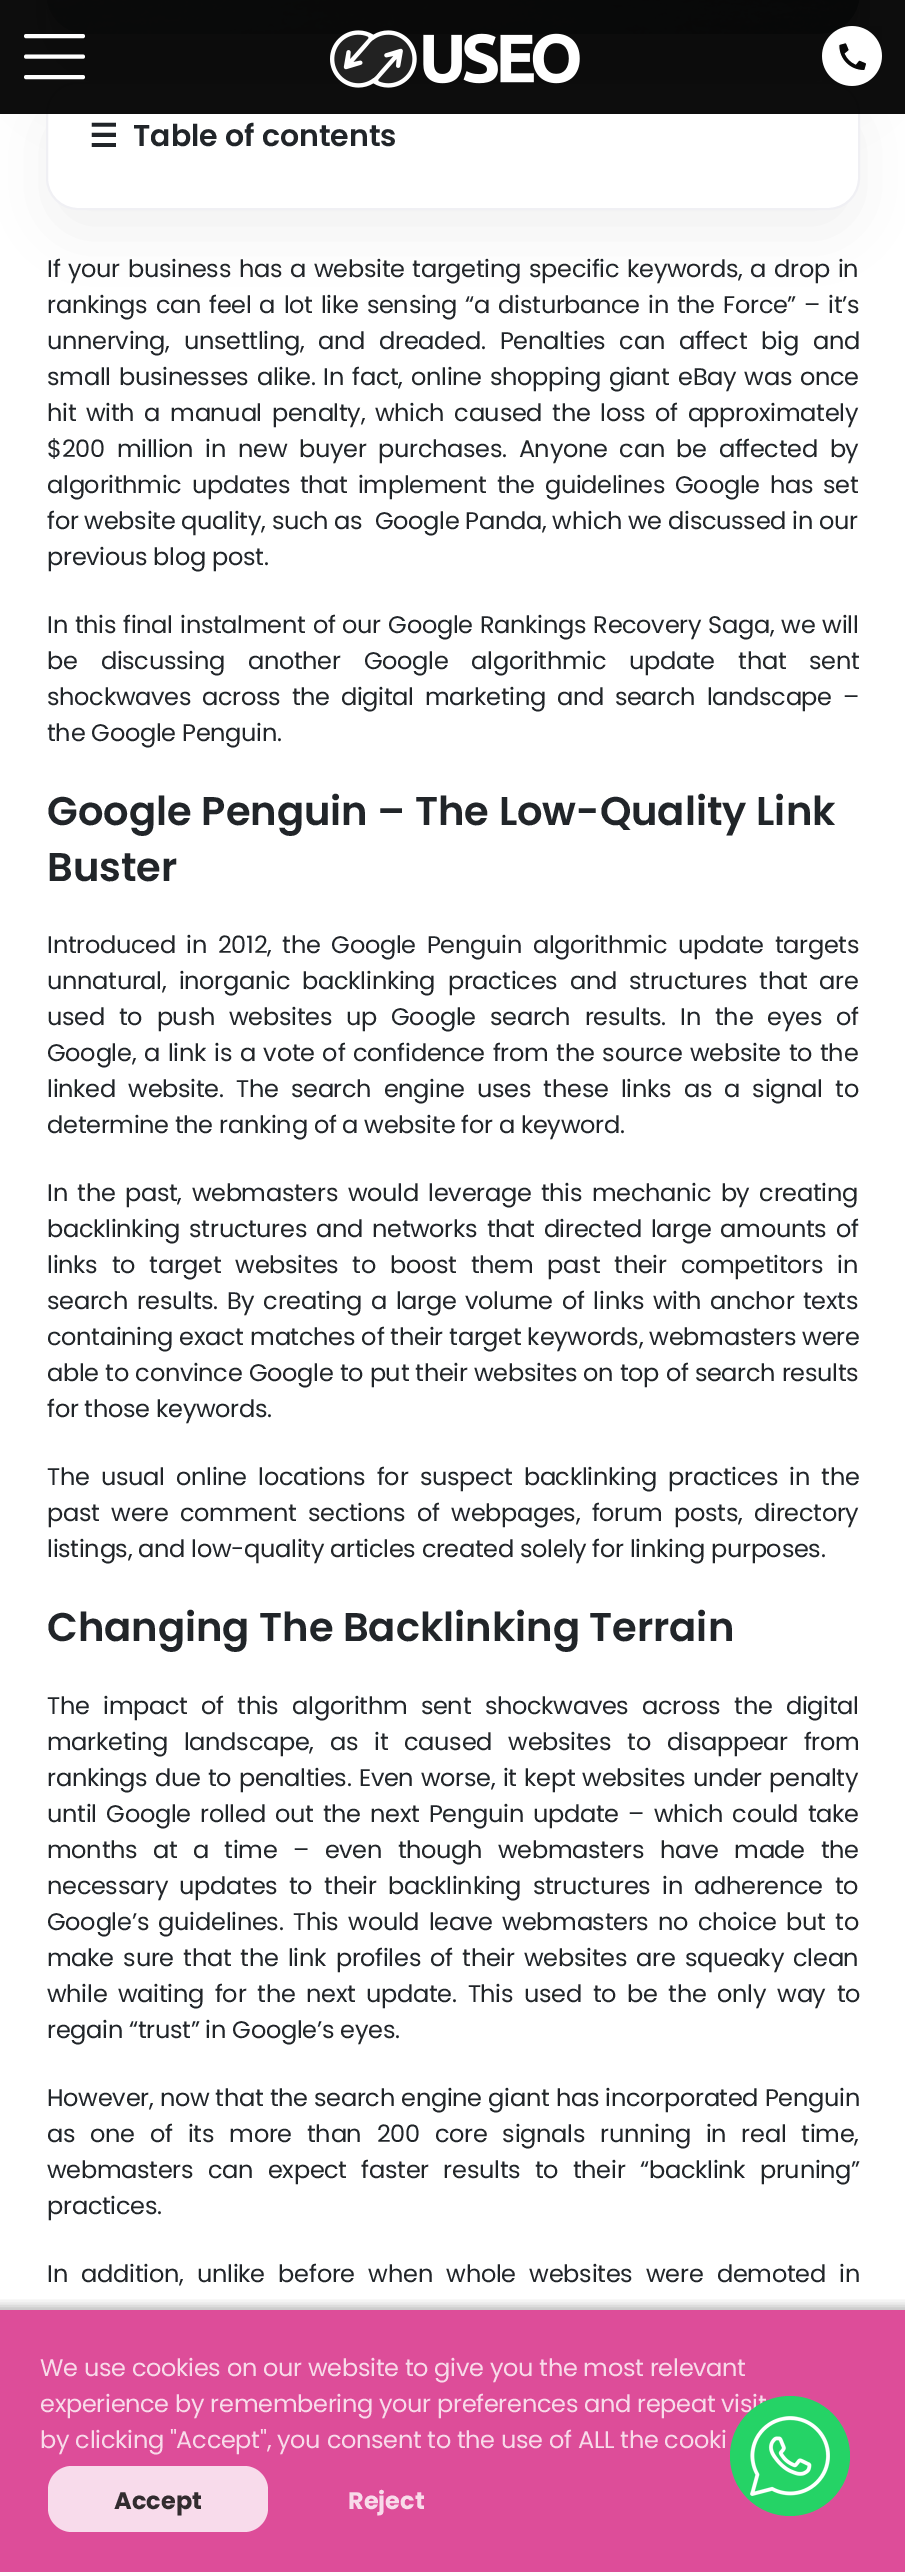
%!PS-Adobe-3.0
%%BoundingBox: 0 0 905 2572
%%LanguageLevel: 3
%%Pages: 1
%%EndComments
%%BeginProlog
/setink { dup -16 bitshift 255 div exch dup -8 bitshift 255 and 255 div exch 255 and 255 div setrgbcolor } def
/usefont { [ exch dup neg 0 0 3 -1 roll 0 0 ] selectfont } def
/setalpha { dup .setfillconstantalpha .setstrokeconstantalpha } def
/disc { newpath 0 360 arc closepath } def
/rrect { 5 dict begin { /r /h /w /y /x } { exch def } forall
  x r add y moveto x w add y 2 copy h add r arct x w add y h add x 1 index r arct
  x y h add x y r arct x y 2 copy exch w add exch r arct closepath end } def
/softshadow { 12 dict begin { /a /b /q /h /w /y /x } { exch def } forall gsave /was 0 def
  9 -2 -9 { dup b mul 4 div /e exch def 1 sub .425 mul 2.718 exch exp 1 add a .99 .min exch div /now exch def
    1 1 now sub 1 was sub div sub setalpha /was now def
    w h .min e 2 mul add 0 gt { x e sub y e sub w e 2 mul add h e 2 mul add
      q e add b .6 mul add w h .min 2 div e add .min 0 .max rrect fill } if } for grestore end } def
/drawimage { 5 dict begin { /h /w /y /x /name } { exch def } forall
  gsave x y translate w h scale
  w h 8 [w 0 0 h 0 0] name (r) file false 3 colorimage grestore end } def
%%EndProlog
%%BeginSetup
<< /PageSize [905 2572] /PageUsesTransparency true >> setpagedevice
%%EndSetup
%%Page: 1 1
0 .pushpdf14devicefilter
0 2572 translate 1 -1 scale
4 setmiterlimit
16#FFFFFF setink
0 0 905 2572 rectfill
16#000000 setink
46 -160 814 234 40 40 0.08 softshadow
(img3.raw) 46 0 814 34 drawimage
46 106 814 128 32 30 0.06 softshadow
16#FFFFFF setink
47 83 812 126 31 rrect gsave fill grestore
16#F0F0F4 setink
2 setlinewidth
stroke
0.95 setalpha
16#000000 setink
0 0 905 114 rectfill
1 setalpha
16#FFFFFF setink
4 setlinewidth
1 setlinecap
1 setlinejoin
26 77 moveto 83 77 lineto 26 56.5 moveto 83 56.5 lineto 26 36 moveto 83 36 lineto stroke
(img1.raw) 330 30 250 58 drawimage
(img2.raw) 822 26 60 60 drawimage
/DejaVuSans-Bold 32 usefont
16#212529 setink
89 147 moveto (☰) show
/Poppins-SemiBold 30 usefont
133 146 moveto (Table of contents) show
/Poppins-Regular 24 usefont
47 277 moveto 1.8 0 32 -0.3 0 (If your business has a website targeting specific keywords, a drop in) awidthshow
47 313 moveto 2 0 32 -0.3 0 (rankings can feel a lot like sensing “a disturbance in the Force” – it’s) awidthshow
47 349 moveto 8 0 32 -0.3 0 (unnerving, unsettling, and dreaded. Penalties can affect big and) awidthshow
47 385 moveto 2 0 32 -0.3 0 (small businesses alike. In fact, online shopping giant eBay was once) awidthshow
47 421 moveto 3.75 0 32 -0.3 0 (hit with a manual penalty, which caused the loss of approximately) awidthshow
47 457 moveto 5.75 0 32 -0.3 0 ($200 million in new buyer purchases. Anyone can be affected by) awidthshow
47 493 moveto 4 0 32 -0.3 0 (algorithmic updates that implement the guidelines Google has set) awidthshow
47 529 moveto -0.3 0 (for website quality, such as  Google Panda, which we discussed in our) ashow
47 565 moveto -0.3 0 (previous blog post.) ashow
47 633 moveto 1 0 32 -0.3 0 (In this final instalment of our Google Rankings Recovery Saga, we will) awidthshow
47 669 moveto 17 0 32 -0.3 0 (be discussing another Google algorithmic update that sent) awidthshow
47 705 moveto 5 0 32 -0.3 0 (shockwaves across the digital marketing and search landscape –) awidthshow
47 741 moveto -0.3 0 (the Google Penguin.) ashow
/Poppins-SemiBold 40 usefont
47 825 moveto (Google Penguin – The Low-Quality Link) show
47 881 moveto (Buster) show
/Poppins-Regular 24 usefont
47 953 moveto 4.75 0 32 -0.3 0 (Introduced in 2012, the Google Penguin algorithmic update targets) awidthshow
47 989 moveto 6.25 0 32 -0.3 0 (unnatural, inorganic backlinking practices and structures that are) awidthshow
47 1025 moveto 8 0 32 -0.3 0 (used to push websites up Google search results. In the eyes of) awidthshow
47 1061 moveto 1.75 0 32 -0.3 0 (Google, a link is a vote of confidence from the source website to the) awidthshow
47 1097 moveto 6.25 0 32 -0.3 0 (linked website. The search engine uses these links as a signal to) awidthshow
47 1133 moveto -0.3 0 (determine the ranking of a website for a keyword.) ashow
47 1201 moveto 3.5 0 32 -0.3 0 (In the past, webmasters would leverage this mechanic by creating) awidthshow
47 1237 moveto 3 0 32 -0.3 0 (backlinking structures and networks that directed large amounts of) awidthshow
47 1273 moveto 8 0 32 -0.3 0 (links to target websites to boost them past their competitors in) awidthshow
47 1309 moveto 2.75 0 32 -0.3 0 (search results. By creating a large volume of links with anchor texts) awidthshow
47 1345 moveto 0.25 0 32 -0.3 0 (containing exact matches of their target keywords, webmasters were) awidthshow
47 1381 moveto 0.25 0 32 -0.3 0 (able to convince Google to put their websites on top of search results) awidthshow
47 1417 moveto -0.3 0 (for those keywords.) ashow
47 1485 moveto 5.25 0 32 -0.3 0 (The usual online locations for suspect backlinking practices in the) awidthshow
47 1521 moveto 5.5 0 32 -0.3 0 (past were comment sections of webpages, forum posts, directory) awidthshow
47 1557 moveto -0.3 0 (listings, and low-quality articles created solely for linking purposes.) ashow
/Poppins-SemiBold 40 usefont
47 1641 moveto (Changing The Backlinking Terrain) show
/Poppins-Regular 24 usefont
47 1714 moveto 7.5 0 32 -0.3 0 (The impact of this algorithm sent shockwaves across the digital) awidthshow
47 1750 moveto 10 0 32 -0.3 0 (marketing landscape, as it caused websites to disappear from) awidthshow
47 1786 moveto 1.25 0 32 -0.3 0 (rankings due to penalties. Even worse, it kept websites under penalty) awidthshow
47 1822 moveto 3.25 0 32 -0.3 0 (until Google rolled out the next Penguin update – which could take) awidthshow
47 1858 moveto 9.5 0 32 -0.3 0 (months at a time – even though webmasters have made the) awidthshow
47 1894 moveto 5.5 0 32 -0.3 0 (necessary updates to their backlinking structures in adherence to) awidthshow
47 1930 moveto 3.5 0 32 -0.3 0 (Google’s guidelines. This would leave webmasters no choice but to) awidthshow
47 1966 moveto 3.25 0 32 -0.3 0 (make sure that the link profiles of their websites are squeaky clean) awidthshow
47 2002 moveto 4.75 0 32 -0.3 0 (while waiting for the next update. This used to be the only way to) awidthshow
47 2038 moveto -0.3 0 (regain “trust” in Google’s eyes.) ashow
47 2106 moveto 0.25 0 32 -0.3 0 (However, now that the search engine giant has incorporated Penguin) awidthshow
47 2142 moveto 9 0 32 -0.3 0 (as one of its more than 200 core signals running in real time,) awidthshow
47 2178 moveto 8.5 0 32 -0.3 0 (webmasters can expect faster results to their “backlink pruning”) awidthshow
47 2214 moveto -0.3 0 (practices.) ashow
47 2282 moveto 7.5 0 32 -0.3 0 (In addition, unlike before when whole websites were demoted in) awidthshow
gsave
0 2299 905 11 rectclip
16#000000 setink
-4 2306 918 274 0 5 0.27 softshadow
grestore
0.8 setalpha
16#D4217F setink
0 2310 905 262 rectfill
1 setalpha
16#F8DBEA setink
40 2376 moveto -0.3 0 (We use cookies on our website to give you the most relevant) ashow
40 2412 moveto -0.3 0 (experience by remembering your preferences and repeat visit) ashow
40 2448 moveto -0.3 0 (by clicking "Accept", you consent to the use of ALL the cooki) ashow
0.8 setalpha
16#FFFFFF setink
48 2466 220 66 24 rrect fill
/Poppins-Bold 24 usefont
1 setalpha
16#322C2F setink
114 2509 moveto (Accept) show
16#F8DBEA setink
348 2509 moveto (Reject) show
16#25D366 setink
790 2456 60 disc fill
(img4.raw) 750 2416 80 80 drawimage
.poppdf14devicefilter showpage
%%EOF
